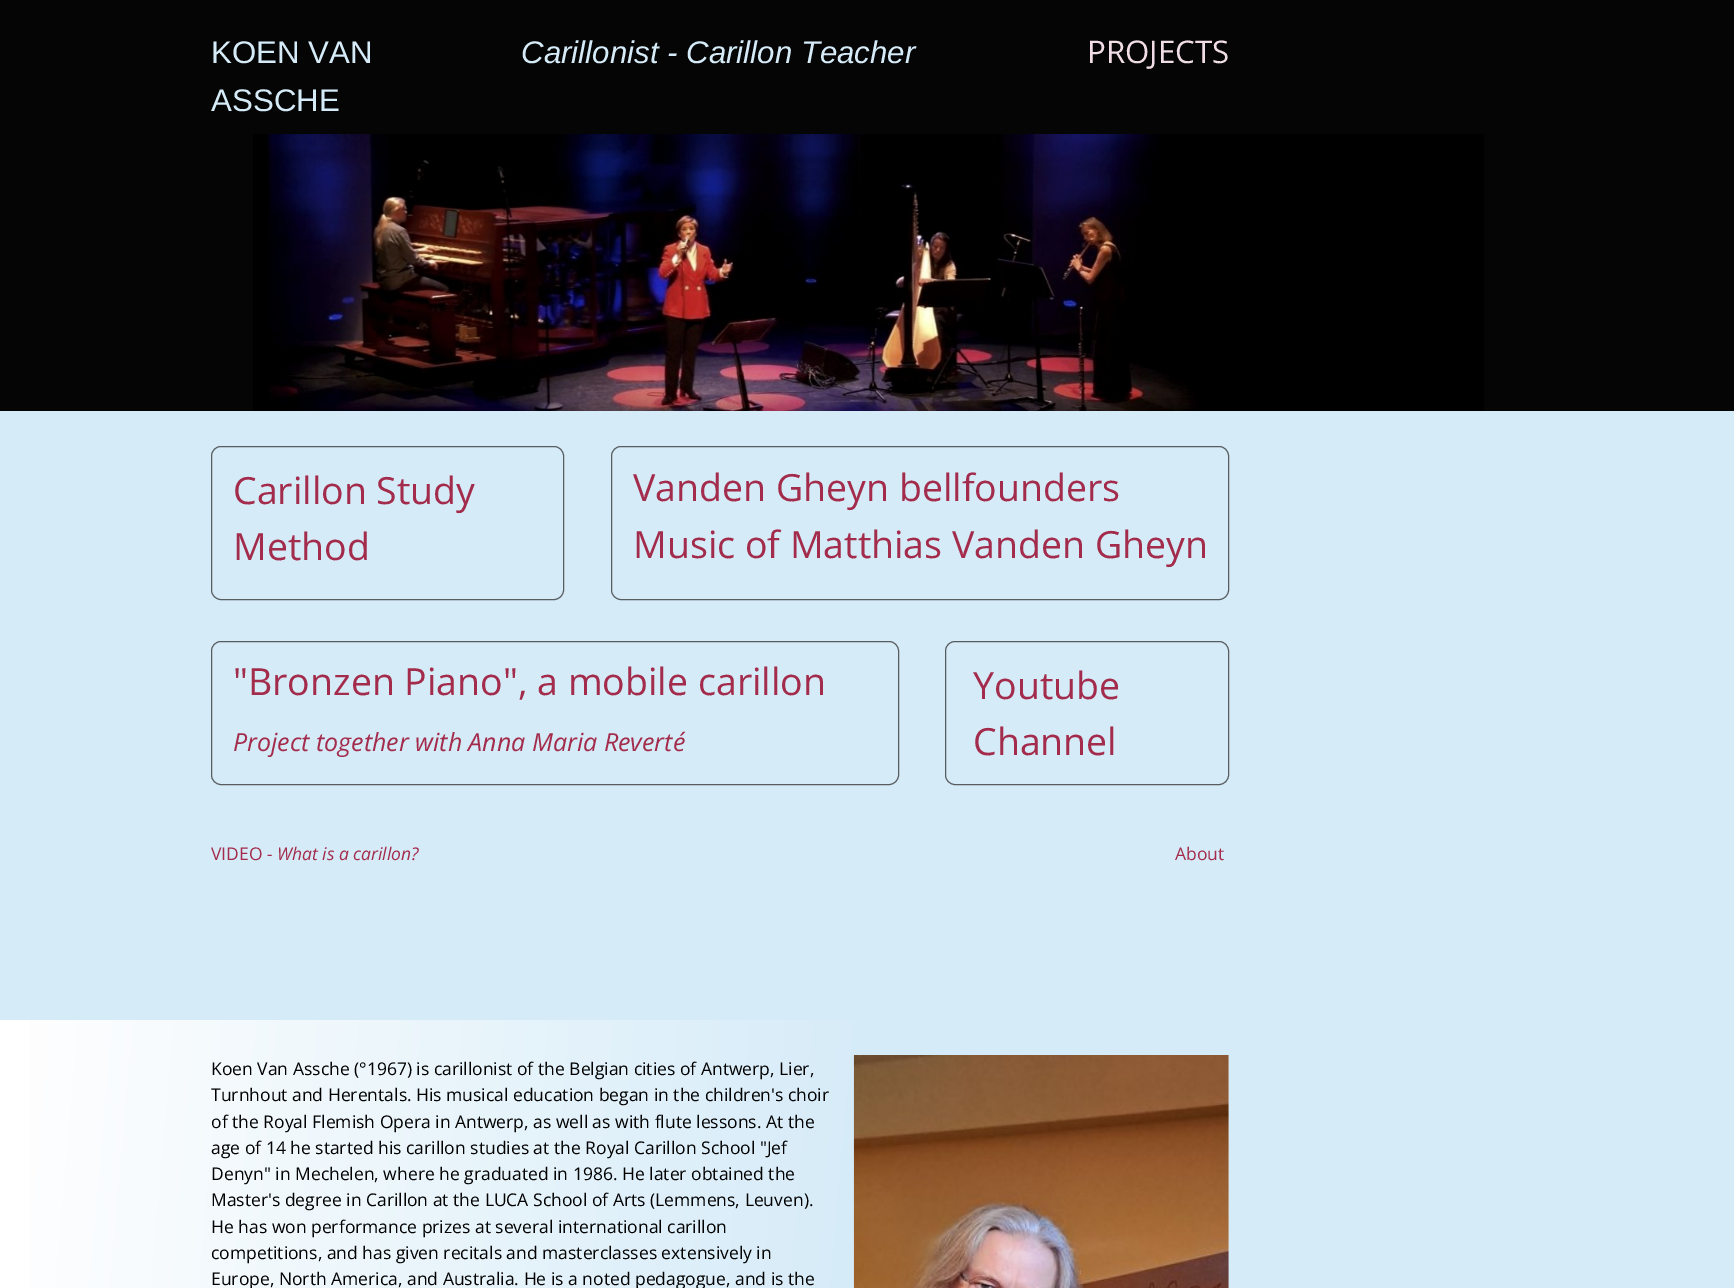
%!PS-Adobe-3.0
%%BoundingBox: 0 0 1734 1288
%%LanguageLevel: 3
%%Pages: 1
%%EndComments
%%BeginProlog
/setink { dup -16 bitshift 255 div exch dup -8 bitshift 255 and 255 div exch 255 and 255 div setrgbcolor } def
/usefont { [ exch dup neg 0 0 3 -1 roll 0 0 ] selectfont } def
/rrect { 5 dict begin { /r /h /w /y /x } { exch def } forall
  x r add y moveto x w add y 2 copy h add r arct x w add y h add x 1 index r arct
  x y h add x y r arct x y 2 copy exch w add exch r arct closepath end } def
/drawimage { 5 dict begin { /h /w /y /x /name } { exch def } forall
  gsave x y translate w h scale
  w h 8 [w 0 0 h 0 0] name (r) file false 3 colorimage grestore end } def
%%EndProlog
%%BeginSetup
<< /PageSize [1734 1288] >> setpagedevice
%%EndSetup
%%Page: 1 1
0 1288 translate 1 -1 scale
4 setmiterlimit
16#FFFFFF setink
0 0 1734 1288 rectfill
16#050505 setink
0 0 1734 411 rectfill
(img1.raw) 253 134 1231 277 drawimage
/LiberationSans-Regular 31.25 usefont
16#D6EBF8 setink
211 63 moveto (KOEN VAN) show
211 111 moveto (ASSCHE) show
/LiberationSans-Italic 31.25 usefont
521 63 moveto (Carillonist - Carillon Teacher) show
/OpenSans-Regular 31.25 usefont
16#F1DDE6 setink
1087 63 moveto (PROJECTS) show
16#D6EBF8 setink
0 411 1734 609 rectfill
16#585D60 setink
211.5 446.5 352 153 9.5 rrect stroke
/OpenSans-Regular 37.5 usefont
16#A32B4B setink
233 504 moveto (Carillon Study) show
233 560 moveto (Method) show
16#585D60 setink
611.5 446.5 617 153 9.5 rrect stroke
16#A32B4B setink
633 501 moveto (Vanden Gheyn bellfounders) show
633 558 moveto (Music of Matthias Vanden Gheyn) show
16#585D60 setink
211.5 641.5 687 143 9.5 rrect stroke
16#A32B4B setink
233 695 moveto ("Bronzen Piano", a mobile carillon) show
/OpenSans-Italic 25 usefont
233 751 moveto (Project together with Anna Maria Reverté) show
16#585D60 setink
945.5 641.5 283 143 9.5 rrect stroke
/OpenSans-Regular 37.5 usefont
16#A32B4B setink
973 699 moveto (Youtube) show
973 755 moveto (Channel) show
/OpenSans-Regular 17.5 usefont
211 860 moveto (VIDEO) show
/OpenSans-Italic 17.5 usefont
267 860 moveto (- What is a carillon?) show
/OpenSans-Regular 17.5 usefont
1175 860 moveto (About) show
gsave 30 1020 moveto 1734 1020 lineto 1734 1288 lineto 30 1288 lineto closepath clip newpath
<< /ShadingType 2 /ColorSpace /DeviceRGB /Coords [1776 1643 -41 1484] /Extend [true true] /Function << /FunctionType 3 /Domain [0 1] /Functions [<< /FunctionType 2 /Domain [0 1] /C0 [0.839 0.922 0.973] /C1 [0.839 0.922 0.973] /N 1 >> << /FunctionType 2 /Domain [0 1] /C0 [0.839 0.922 0.973] /C1 [1 1 1] /N 1 >>] /Bounds [0.52] /Encode [0 1 0 1] >> >> shfill grestore
16#000000 setink
[
    [(Koen Van Assche \(°1967\) is carillonist of the Belgian cities of Antwerp, Lier,) 211 1075]
    [(Turnhout and Herentals. His musical education began in the children's choir) 211 1101]
    [(of the Royal Flemish Opera in Antwerp, as well as with flute lessons. At the) 211 1128]
    [(age of 14 he started his carillon studies at the Royal Carillon School "Jef) 211 1154]
    [(Denyn" in Mechelen, where he graduated in 1986. He later obtained the) 211 1180]
    [(Master's degree in Carillon at the LUCA School of Arts \(Lemmens, Leuven\).) 211 1206]
    [(He has won performance prizes at several international carillon) 211 1233]
    [(competitions, and has given recitals and masterclasses extensively in) 211 1259]
    [(Europe, North America, and Australia. He is a noted pedagogue, and is the) 211 1285]
] { aload pop moveto show } forall
(img2.raw) 853 1055 376 233 drawimage
showpage
%%EOF
